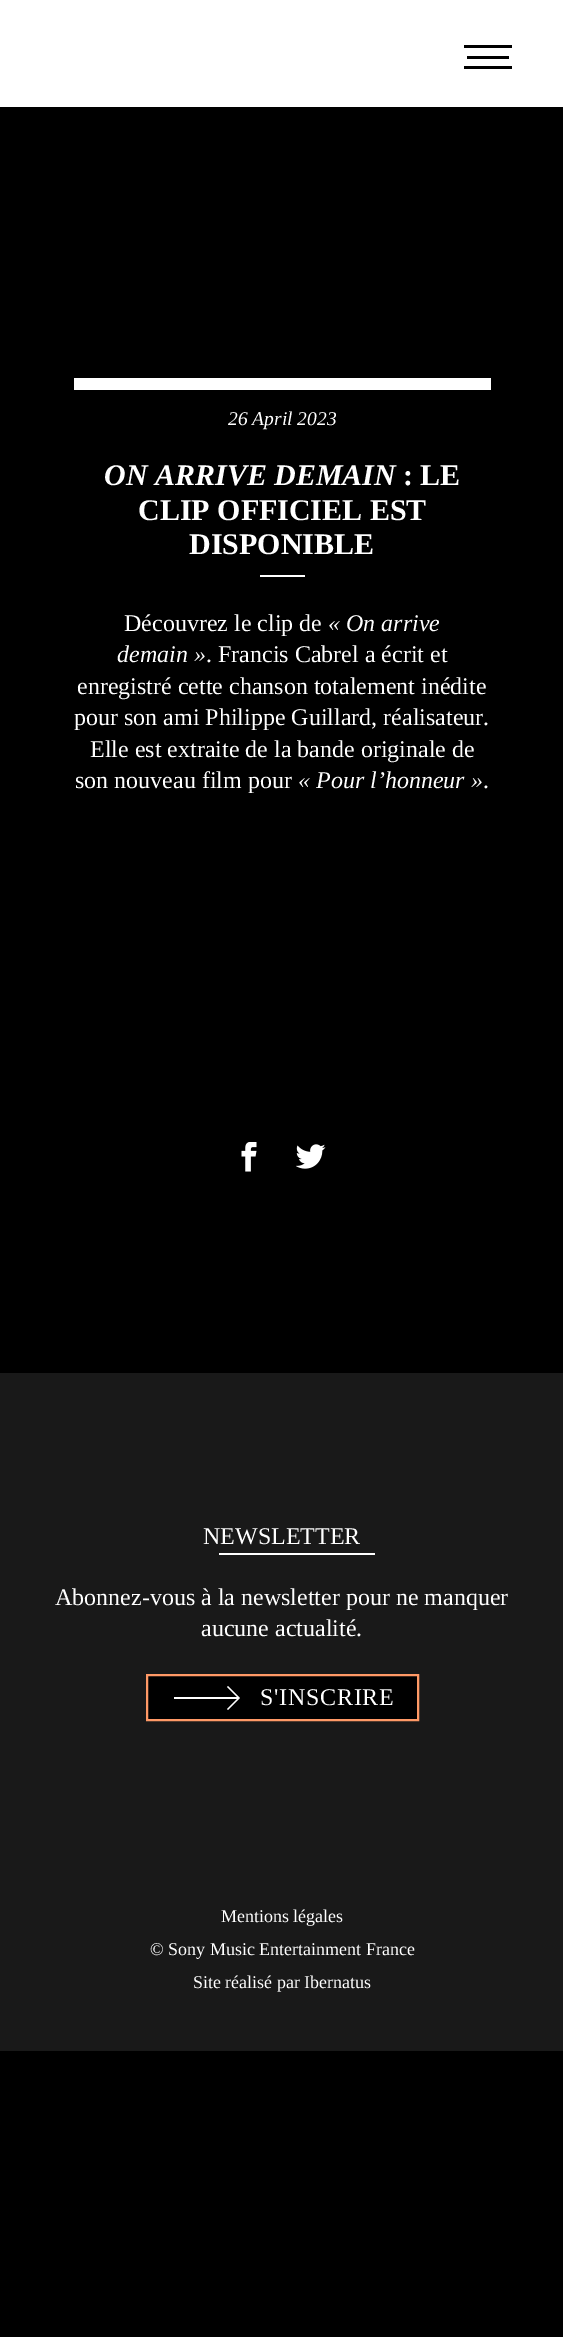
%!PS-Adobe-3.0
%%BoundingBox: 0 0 563 2337
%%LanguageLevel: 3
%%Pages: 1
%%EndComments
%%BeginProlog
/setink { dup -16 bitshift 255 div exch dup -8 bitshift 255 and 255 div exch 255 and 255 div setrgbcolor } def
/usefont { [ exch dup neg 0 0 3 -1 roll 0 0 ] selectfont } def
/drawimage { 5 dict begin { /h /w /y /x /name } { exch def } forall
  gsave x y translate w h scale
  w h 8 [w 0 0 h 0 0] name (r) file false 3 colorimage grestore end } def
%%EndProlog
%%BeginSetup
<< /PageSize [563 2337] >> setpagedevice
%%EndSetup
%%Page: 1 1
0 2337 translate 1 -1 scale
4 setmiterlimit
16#000000 setink
0 0 563 2337 rectfill
[
    [0 0 563 107 16#FFFFFF]
    [464 45 48 3 16#000000]
    [467 56 42 3 16#000000]
    [464 66 48 3 16#000000]
    [74 378 417 12 16#FFFFFF]
] { aload pop setink rectfill } forall
/LiberationSerif-Italic 19.5 usefont
228 425 moveto (26 April 2023) show
/LiberationSerif-BoldItalic 30 usefont
104 485 moveto (ON ARRIVE DEMAIN) show
/LiberationSerif-Bold 30 usefont
[
    [(: LE) 403 485]
    [(CLIP OFFICIEL EST) 138 520]
    [(DISPONIBLE) 189 554]
] { aload pop moveto show } forall
260 575 45 2 rectfill
/LiberationSerif-Regular 24 usefont
124 631 moveto (Découvrez le clip de) show
/LiberationSerif-Italic 24 usefont
328 631 moveto (« On arrive) show
117 662 moveto (demain ») show
/LiberationSerif-Regular 24 usefont
[
    [(. Francis Cabrel a écrit et) 206 662]
    [(enregistré cette chanson totalement inédite) 77 694]
    [(pour son ami Philippe Guillard, réalisateur.) 74 725]
    [(Elle est extraite de la bande originale de) 90 757]
    [(son nouveau film pour) 75 788]
] { aload pop moveto show } forall
/LiberationSerif-Italic 24 usefont
298 788 moveto (« Pour l’honneur ») show
/LiberationSerif-Regular 24 usefont
483 788 moveto (.) show
(img1.raw) 241 1142 16 30 drawimage
(img2.raw) 296 1144 30 25 drawimage
16#191919 setink
0 1373 563 678 rectfill
16#FFFFFF setink
203 1544 moveto (NEWSLETTER) show
219 1553 156 2 rectfill
55 1605 moveto (Abonnez-vous à la newsletter pour ne manquer) show
201 1636 moveto (aucune actualité.) show
16#000000 setink
147 1675 moveto 418 1675 lineto 418 1720 lineto 147 1720 lineto closepath gsave fill grestore
16#FF9966 setink
2 setlinewidth
stroke
16#FFFFFF setink
227 1687 moveto 237 1697 lineto 174 1697 lineto 174 1699 lineto 237 1699 lineto 227 1709 lineto 228 1710 lineto 240 1698 lineto 228 1686 lineto closepath fill
260 1705 moveto 0.75 0 (S'INSCRIRE) ashow
/LiberationSerif-Regular 18 usefont
[
    [(Mentions légales) 221 1922]
    [(© Sony Music Entertainment France) 150 1955]
    [(Site réalisé par Ibernatus) 193 1988]
] { aload pop moveto show } forall
showpage
%%EOF
